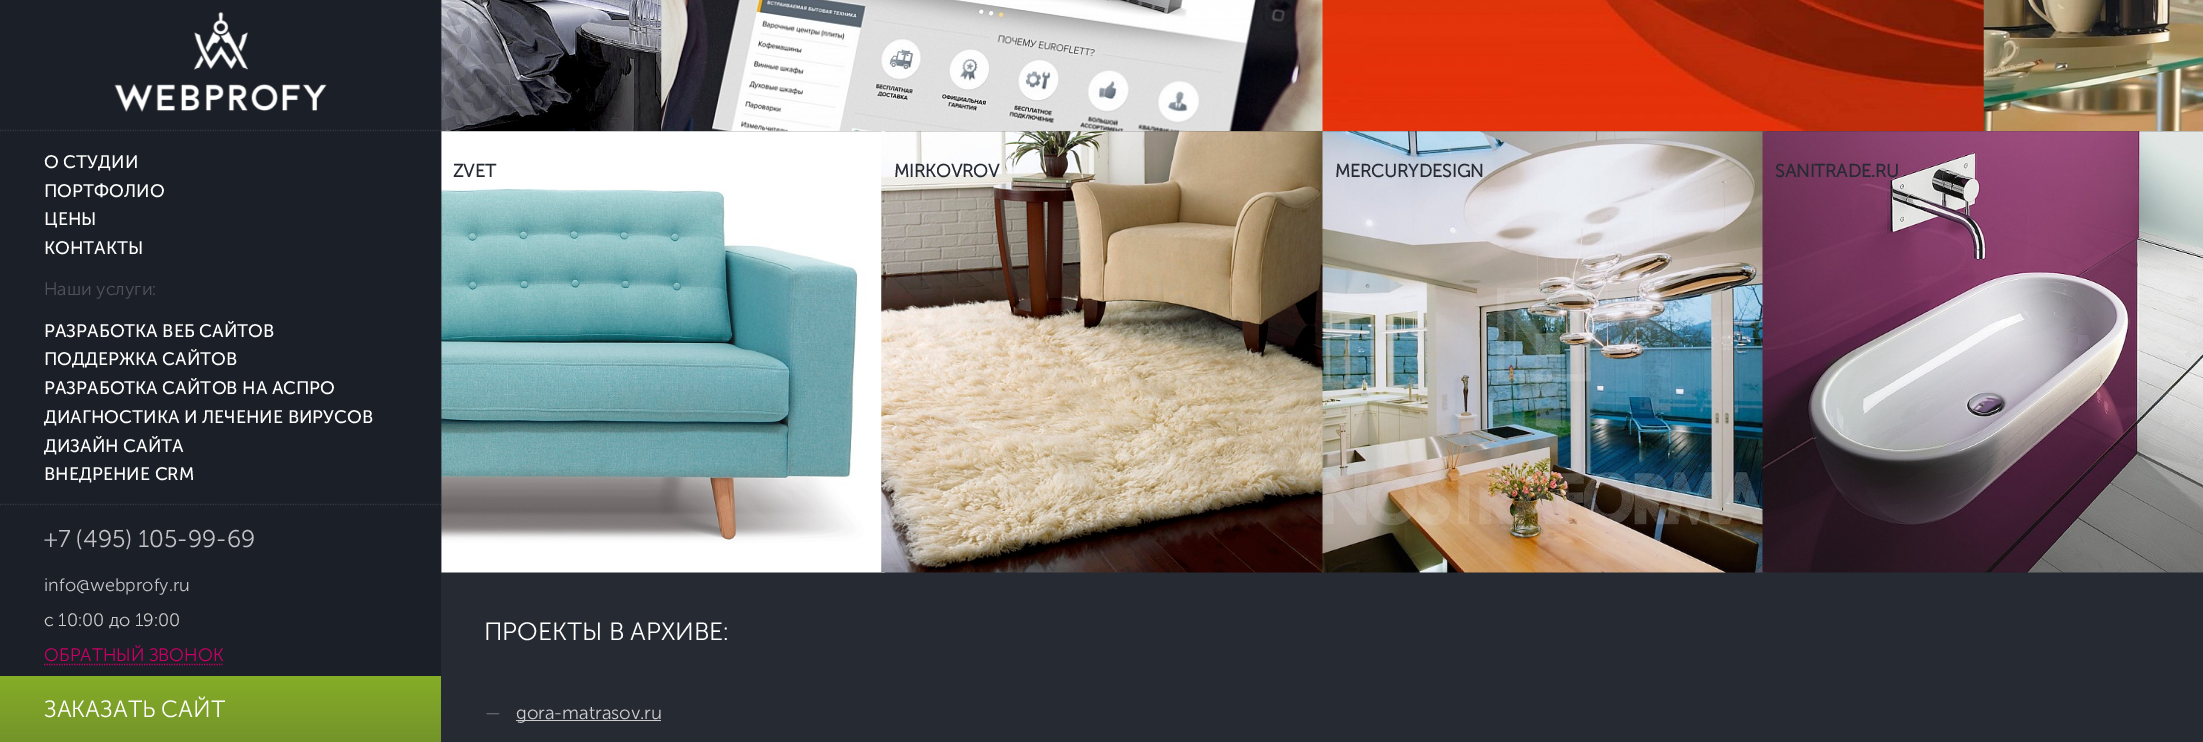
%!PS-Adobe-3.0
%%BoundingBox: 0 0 2203 742
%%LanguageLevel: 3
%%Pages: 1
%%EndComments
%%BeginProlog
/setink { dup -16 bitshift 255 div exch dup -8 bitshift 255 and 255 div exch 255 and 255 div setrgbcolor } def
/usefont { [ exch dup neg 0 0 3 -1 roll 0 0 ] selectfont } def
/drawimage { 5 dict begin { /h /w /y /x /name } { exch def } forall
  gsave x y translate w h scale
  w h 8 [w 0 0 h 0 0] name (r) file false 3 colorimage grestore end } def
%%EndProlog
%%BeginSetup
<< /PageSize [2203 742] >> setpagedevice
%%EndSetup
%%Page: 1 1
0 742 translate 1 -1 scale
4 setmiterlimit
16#262A33 setink
0 0 2203 742 rectfill
16#1B1F27 setink
0 0 441 676 rectfill
16#343840 setink
1.2 setlinewidth
[1.25 1.25] 0 setdash
0 130.5 moveto 441 130.5 lineto stroke
(img1.raw) 114 12 213 100 drawimage
/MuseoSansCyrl-Regular 18 usefont
16#FFFFFF setink
[
    [(О СТУДИИ) 44 168]
    [(ПОРТФОЛИО) 44 197]
    [(ЦЕНЫ) 44 225]
    [(КОНТАКТЫ) 44 254]
] { aload pop moveto show } forall
/MuseoSansCyrl-Light 18 usefont
16#52525D setink
44 295 moveto (Наши услуги:) show
/MuseoSansCyrl-Regular 18 usefont
16#FFFFFF setink
[
    [(РАЗРАБОТКА ВЕБ САЙТОВ) 44 337]
    [(ПОДДЕРЖКА САЙТОВ) 44 365]
    [(РАЗРАБОТКА САЙТОВ НА АСПРО) 44 394]
    [(ДИАГНОСТИКА И ЛЕЧЕНИЕ ВИРУСОВ) 44 423]
    [(ДИЗАЙН САЙТА) 44 452]
    [(ВНЕДРЕНИЕ CRM) 44 480]
] { aload pop moveto show } forall
16#343840 setink
0 504.5 moveto 441 504.5 lineto stroke
/MuseoSansCyrl-Light 24.1 usefont
16#C2C2C8 setink
44 547 moveto (+7 \(495\) 105-99-69) show
/MuseoSansCyrl-Light 18 usefont
44 591 moveto (info@webprofy.ru) show
16#CCCCCC setink
44 626 moveto (с 10:00 до 19:00) show
16#CA0066 setink
44 661 moveto (ОБРАТНЫЙ ЗВОНОК) show
44 664.5 moveto 222.5 664.5 lineto stroke
gsave 0 676 moveto 441 676 lineto 441 742 lineto 0 742 lineto closepath clip newpath
<< /ShadingType 2 /ColorSpace /DeviceRGB /Coords [221 676 221 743] /Extend [true true] /Function << /FunctionType 2 /Domain [0 1] /C0 [0.522 0.678 0.153] /C1 [0.455 0.58 0.165] /N 1 >> >> shfill grestore
/MuseoSansCyrl-Light 23.5 usefont
16#FFFFFF setink
44 717 moveto (ЗАКАЗАТЬ САЙТ) show
(img2.raw) 441 0 224 132 drawimage
(img3.raw) 661 0 666 132 drawimage
(img4.raw) 1322 0 666 132 drawimage
(img5.raw) 1983 0 220 132 drawimage
(img6.raw) 441 131 444 442 drawimage
/MuseoSansCyrl-Bold 18 usefont
16#262A33 setink
453 177 moveto (ZVET) show
(img7.raw) 881 131 446 442 drawimage
894 177 moveto (MIRKOVROV) show
(img8.raw) 1322 131 445 442 drawimage
1335 177 moveto (MERCURYDESIGN) show
(img9.raw) 1762 131 441 442 drawimage
1775 177 moveto (SANITRADE.RU) show
/MuseoSansCyrl-Light 25 usefont
16#FFFFFF setink
484 640 moveto (ПРОЕКТЫ В АРХИВЕ:) show
/MuseoSansCyrl-Light 18.5 usefont
16#787784 setink
485 719 moveto (—) show
16#CCCCCC setink
516 720 145 1 rectfill
516 719 moveto (gora-matrasov.ru) show
showpage
%%EOF
